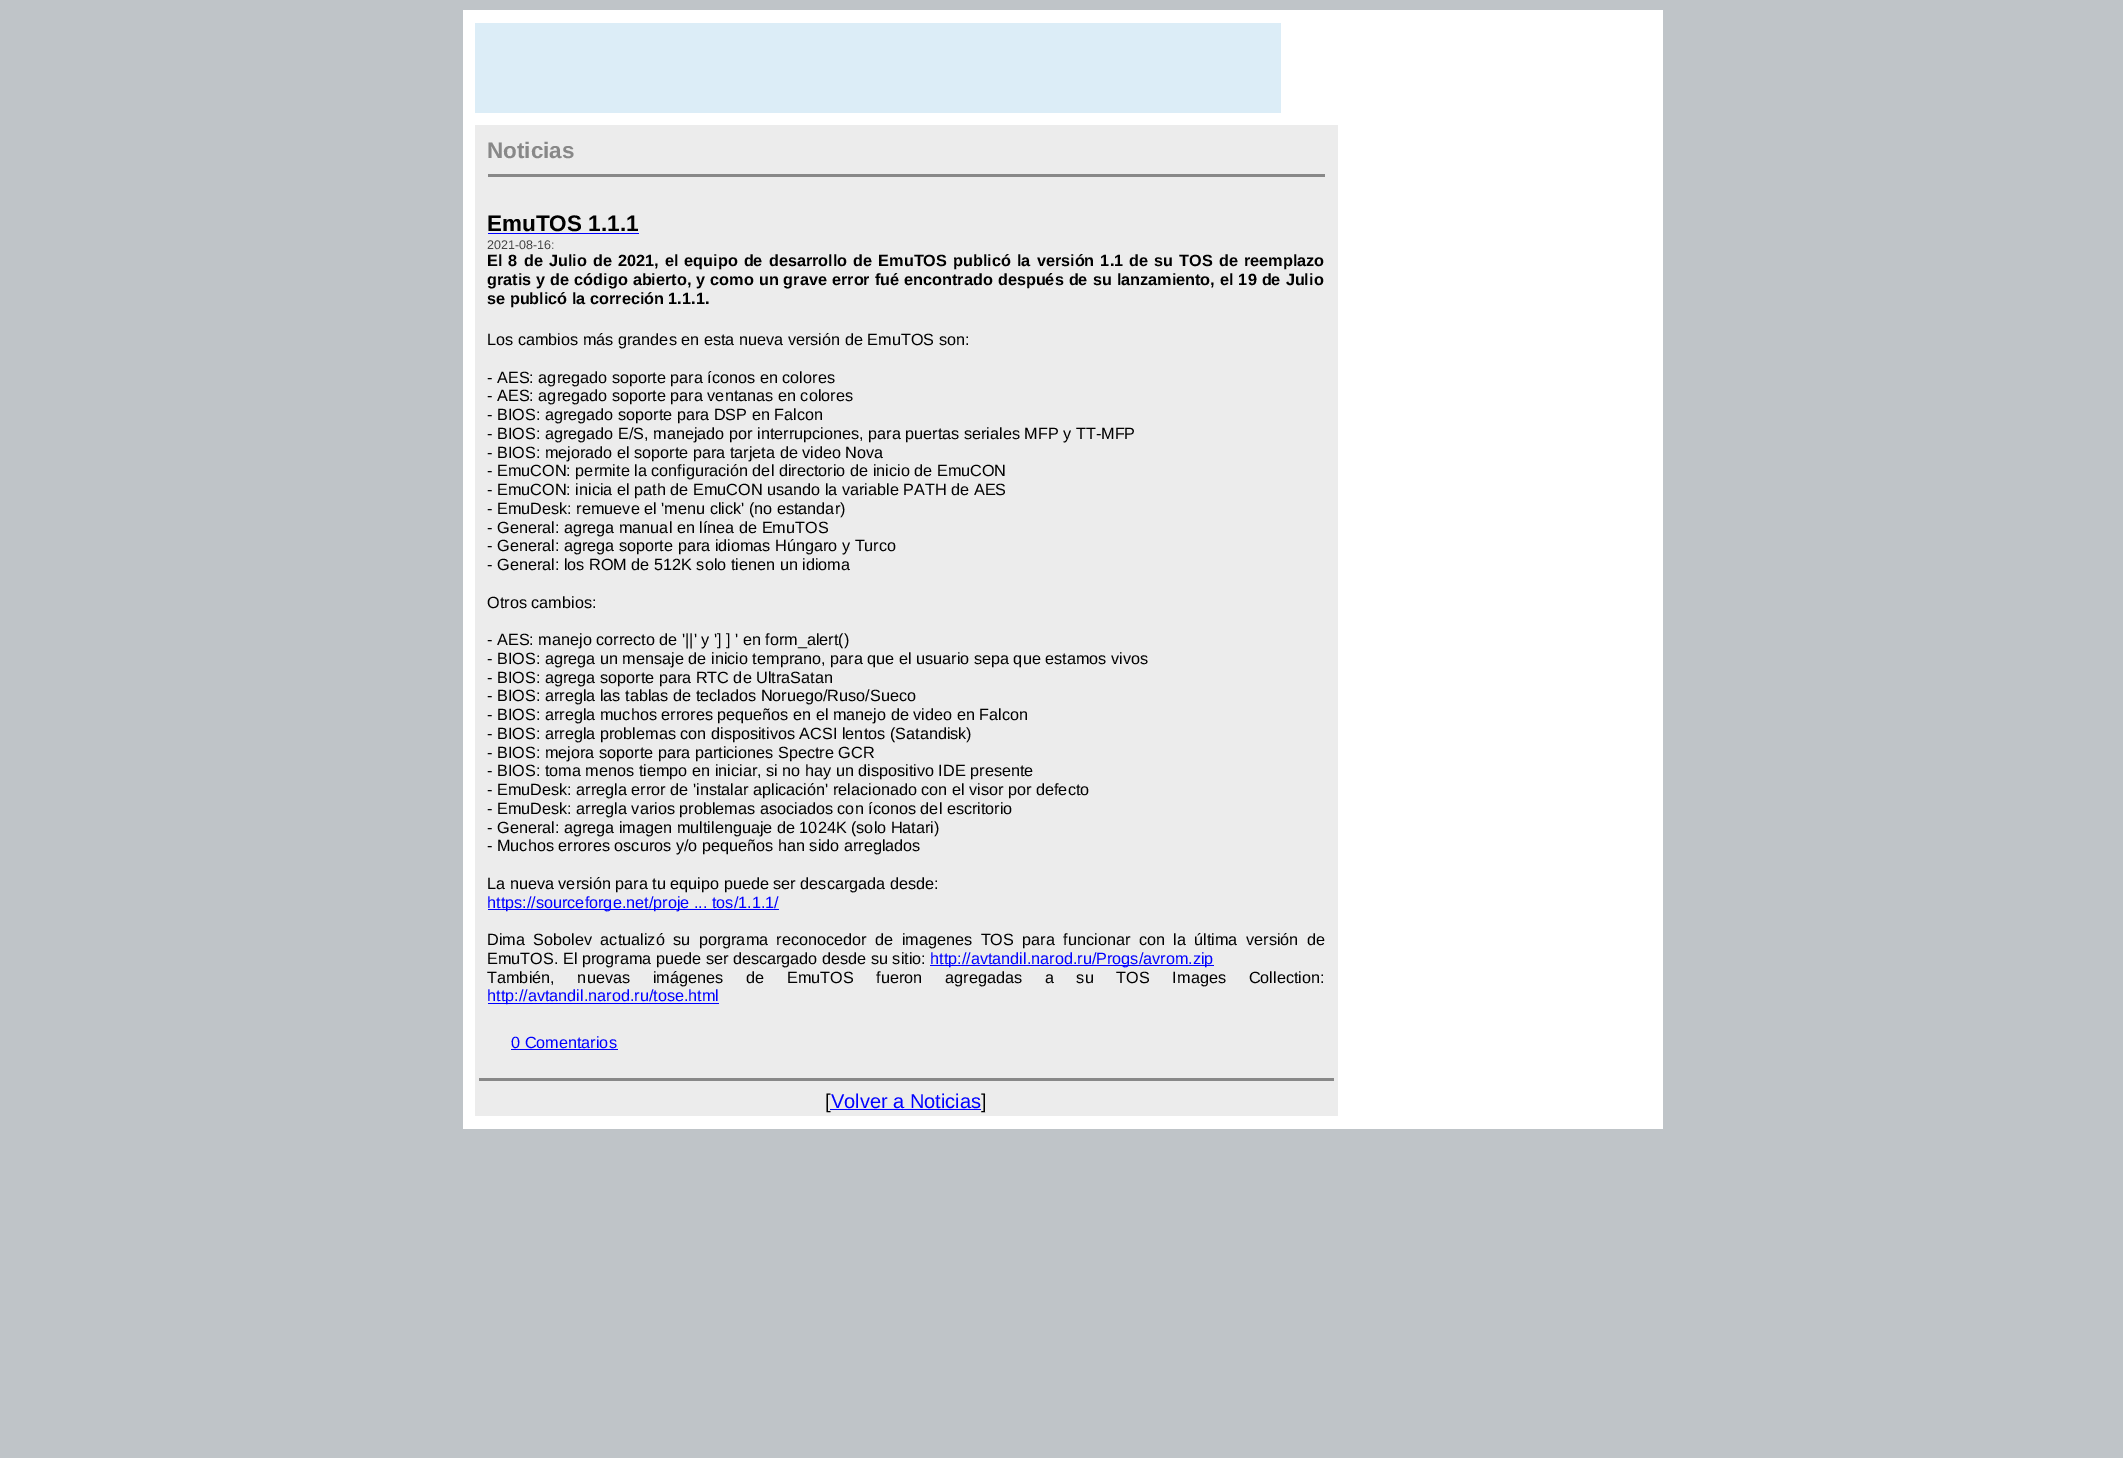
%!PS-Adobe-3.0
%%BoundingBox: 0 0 2123 1458
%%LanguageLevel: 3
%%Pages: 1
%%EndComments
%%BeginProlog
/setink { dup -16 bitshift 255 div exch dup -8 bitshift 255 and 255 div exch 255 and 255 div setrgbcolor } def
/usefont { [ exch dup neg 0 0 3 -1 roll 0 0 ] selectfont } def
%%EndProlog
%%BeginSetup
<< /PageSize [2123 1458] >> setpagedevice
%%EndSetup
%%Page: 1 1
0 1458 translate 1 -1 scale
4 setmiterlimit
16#BFC4C8 setink
0 0 2123 1458 rectfill
[
    [463 10 1200 1119 16#FFFFFF]
    [475 23 806 90 16#DCEDF7]
    [475 125 863 991 16#ECECEC]
] { aload pop setink rectfill } forall
/LiberationSans-Bold 22.5 usefont
16#888888 setink
487 158 moveto (Noticias) show
488 174 837 3 rectfill
16#000000 setink
487 231 moveto (EmuTOS 1.1.1) show
16#0000FF setink
488 233 151 1 rectfill
/LiberationSans-Regular 12.5 usefont
16#444444 setink
487 249 moveto (2021-08-16:) show
/LiberationSans-Bold 16.25 usefont
16#000000 setink
487 266 moveto 1.6 0 32 (El 8 de Julio de 2021, el equipo de desarrollo de EmuTOS publicó la versión 1.1 de su TOS de reemplazo) widthshow
487 285 moveto 0.5 0 32 (gratis y de código abierto, y como un grave error fué encontrado después de su lanzamiento, el 19 de Julio) widthshow
487 304 moveto (se publicó la correción 1.1.1.) show
/LiberationSans-Regular 16.25 usefont
[
    [(Los cambios más grandes en esta nueva versión de EmuTOS son:) 487 345]
    [(- AES: agregado soporte para íconos en colores) 487 383]
    [(- AES: agregado soporte para ventanas en colores) 487 401]
    [(- BIOS: agregado soporte para DSP en Falcon) 487 420]
    [(- BIOS: agregado E/S, manejado por interrupciones, para puertas seriales MFP y TT-MFP) 487 439]
    [(- BIOS: mejorado el soporte para tarjeta de video Nova) 487 458]
    [(- EmuCON: permite la configuración del directorio de inicio de EmuCON) 487 476]
    [(- EmuCON: inicia el path de EmuCON usando la variable PATH de AES) 487 495]
    [(- EmuDesk: remueve el 'menu click' \(no estandar\)) 487 514]
    [(- General: agrega manual en línea de EmuTOS) 487 533]
    [(- General: agrega soporte para idiomas Húngaro y Turco) 487 551]
    [(- General: los ROM de 512K solo tienen un idioma) 487 570]
    [(Otros cambios:) 487 608]
    [(- AES: manejo correcto de '||' y '] ] ' en form_alert\(\)) 487 645]
    [(- BIOS: agrega un mensaje de inicio temprano, para que el usuario sepa que estamos vivos) 487 664]
    [(- BIOS: agrega soporte para RTC de UltraSatan) 487 683]
    [(- BIOS: arregla las tablas de teclados Noruego/Ruso/Sueco) 487 701]
    [(- BIOS: arregla muchos errores pequeños en el manejo de video en Falcon) 487 720]
    [(- BIOS: arregla problemas con dispositivos ACSI lentos \(Satandisk\)) 487 739]
    [(- BIOS: mejora soporte para particiones Spectre GCR) 487 758]
    [(- BIOS: toma menos tiempo en iniciar, si no hay un dispositivo IDE presente) 487 776]
    [(- EmuDesk: arregla error de 'instalar aplicación' relacionado con el visor por defecto) 487 795]
    [(- EmuDesk: arregla varios problemas asociados con íconos del escritorio) 487 814]
    [(- General: agrega imagen multilenguaje de 1024K \(solo Hatari\)) 487 833]
    [(- Muchos errores oscuros y/o pequeños han sido arreglados) 487 851]
    [(La nueva versión para tu equipo puede ser descargada desde:) 487 889]
] { aload pop moveto show } forall
16#0000FF setink
488 909 291 1 rectfill
487 908 moveto (https://sourceforge.net/proje ... tos/1.1.1/) show
16#000000 setink
487 945 moveto 3.9 0 32 (Dima Sobolev actualizó su porgrama reconocedor de imagenes TOS para funcionar con la última versión de) widthshow
487 964 moveto (EmuTOS. El programa puede ser descargado desde su sitio:) show
16#0000FF setink
930 965 284 1 rectfill
930 964 moveto (http://avtandil.narod.ru/Progs/avrom.zip) show
16#000000 setink
487 983 moveto 18.25 0 32 (También, nuevas imágenes de EmuTOS fueron agregadas a su TOS Images Collection:) widthshow
16#0000FF setink
488 1003 231 1 rectfill
487 1001 moveto (http://avtandil.narod.ru/tose.html) show
511 1048 moveto (0 Comentarios) show
511 1049 107 1 rectfill
16#888888 setink
479 1078 855 3 rectfill
/LiberationSans-Regular 20 usefont
16#000000 setink
825 1108 moveto ([) show
16#0000FF setink
830 1109 151 1 rectfill
831 1108 moveto (Volver a Noticias) show
16#000000 setink
981 1108 moveto (]) show
showpage
%%EOF
